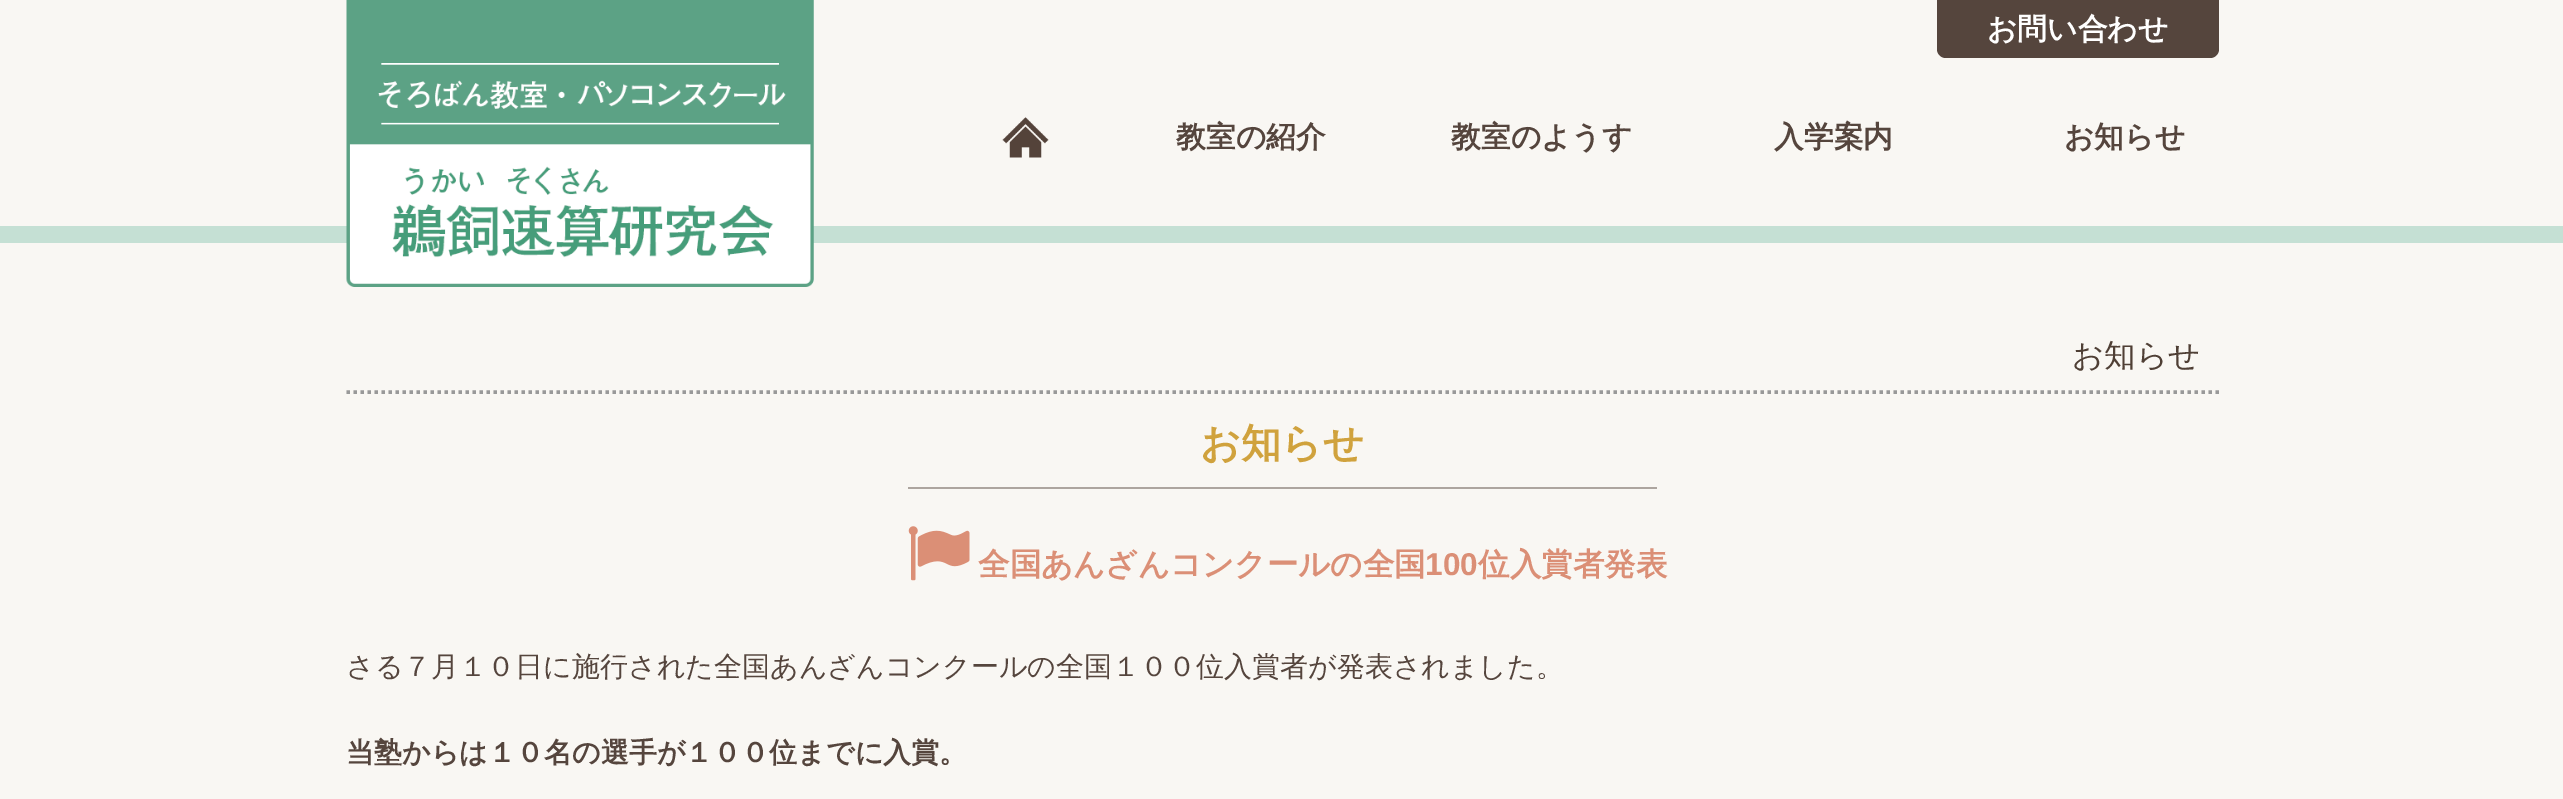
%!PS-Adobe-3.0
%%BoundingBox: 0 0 2563 799
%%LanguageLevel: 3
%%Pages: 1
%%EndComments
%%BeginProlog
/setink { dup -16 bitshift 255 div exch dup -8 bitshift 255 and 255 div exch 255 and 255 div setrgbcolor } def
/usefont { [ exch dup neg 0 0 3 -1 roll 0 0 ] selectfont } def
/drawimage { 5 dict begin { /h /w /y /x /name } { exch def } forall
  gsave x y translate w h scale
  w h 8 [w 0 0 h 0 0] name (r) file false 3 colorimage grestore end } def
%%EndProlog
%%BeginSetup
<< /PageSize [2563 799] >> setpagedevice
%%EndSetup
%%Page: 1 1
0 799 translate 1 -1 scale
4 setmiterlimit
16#F9F7F3 setink
0 0 2563 799 rectfill
16#C5E0D4 setink
0 226 2563 17 rectfill
(img1.raw) 346 0 468 287 drawimage
16#55453D setink
1937 0 moveto 2219 0 lineto 2219 49 lineto 2219 54 2215 58 2210 58 curveto 1946 58 lineto 1941 58 1937 54 1937 49 curveto closepath fill
/WenQuanYiZenHei-Bold 29.75 usefont
16#FFFFFF setink
1987 39 moveto (お問い合わせ) show
(img2.raw) 1002 117 47 41 drawimage
16#55453D setink
[
    [(教室の紹介) 1176 147]
    [(教室のようす) 1451 147]
    [(入学案内) 1774 147]
    [(お知らせ) 2064 147]
] { aload pop moveto show } forall
16#999999 setink
3.5 setlinewidth
[3.5 3.5] 0 setdash
346.5 392 moveto 2219 392 lineto stroke
/WenQuanYiZenHei-Medium 31.5 usefont
16#4F3F35 setink
2072 366 moveto (お知らせ) show
16#ADA59F setink
908 487 749 2 rectfill
/WenQuanYiZenHei-Bold 40.25 usefont
16#D0A23D setink
1200 457 moveto (お知らせ) show
(img3.raw) 908 526 62 55 drawimage
/WenQuanYiZenHei-Bold 31.5 usefont
16#DB8F76 setink
978 575 moveto (全国あんざんコンクールの全国) show
/LiberationSans-Bold 31.5 usefont
1425 575 moveto (100) show
/WenQuanYiZenHei-Bold 31.5 usefont
1478 575 moveto (位入賞者発表) show
/WenQuanYiZenHei-Medium 28 usefont
16#55453D setink
346 676 moveto (さる７月１０日に施行された全国あんざんコンクールの全国１００位入賞者が発表されました。) show
/WenQuanYiZenHei-Bold 28 usefont
346 762 moveto (当塾からは１０名の選手が１００位までに入賞。) show
showpage
%%EOF
